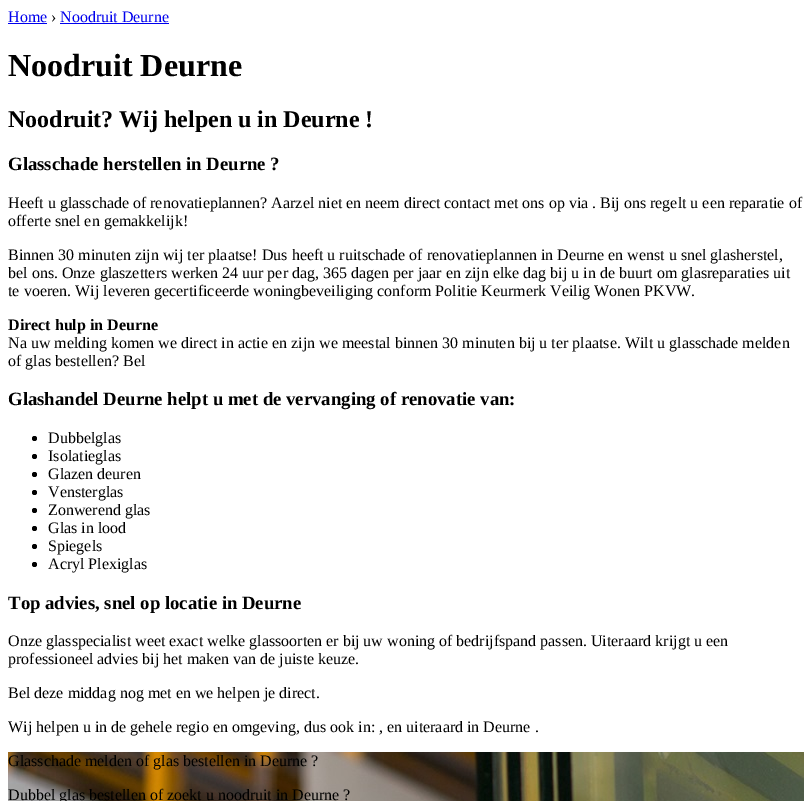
%!PS-Adobe-3.0
%%BoundingBox: 0 0 812 801
%%LanguageLevel: 3
%%Pages: 1
%%EndComments
%%BeginProlog
/setink { dup -16 bitshift 255 div exch dup -8 bitshift 255 and 255 div exch 255 and 255 div setrgbcolor } def
/usefont { [ exch dup neg 0 0 3 -1 roll 0 0 ] selectfont } def
/disc { newpath 0 360 arc closepath } def
/drawimage { 5 dict begin { /h /w /y /x /name } { exch def } forall
  gsave x y translate w h scale
  w h 8 [w 0 0 h 0 0] name (r) file false 3 colorimage grestore end } def
%%EndProlog
%%BeginSetup
<< /PageSize [812 801] >> setpagedevice
%%EndSetup
%%Page: 1 1
0 801 translate 1 -1 scale
4 setmiterlimit
16#FFFFFF setink
0 0 812 801 rectfill
/LiberationSerif-Regular 16 usefont
16#0000EE setink
8 22 moveto (Home) show
8 23 39 1 rectfill
16#000000 setink
51 22 moveto (›) show
16#0000EE setink
60 23 109 1 rectfill
60 22 moveto (Noodruit Deurne) show
/LiberationSerif-Bold 32 usefont
16#000000 setink
8 76 moveto (Noodruit Deurne) show
/LiberationSerif-Bold 24 usefont
8 127 moveto (Noodruit? Wij helpen u in Deurne !) show
/LiberationSerif-Bold 18.75 usefont
8 170 moveto (Glasschade herstellen in Deurne ?) show
/LiberationSerif-Regular 16 usefont
[
    [(Heeft u glasschade of renovatieplannen? Aarzel niet en neem direct contact met ons op via . Bij ons regelt u een reparatie of) 8 208]
    [(offerte snel en gemakkelijk!) 8 226]
    [(Binnen 30 minuten zijn wij ter plaatse! Dus heeft u ruitschade of renovatieplannen in Deurne en wenst u snel glasherstel,) 8 260]
    [(bel ons. Onze glaszetters werken 24 uur per dag, 365 dagen per jaar en zijn elke dag bij u in de buurt om glasreparaties uit) 8 278]
    [(te voeren. Wij leveren gecertificeerde woningbeveiliging conform Politie Keurmerk Veilig Wonen PKVW.) 8 296]
] { aload pop moveto show } forall
/LiberationSerif-Bold 16 usefont
8 330 moveto (Direct hulp in Deurne) show
/LiberationSerif-Regular 16 usefont
8 348 moveto (Na uw melding komen we direct in actie en zijn we meestal binnen 30 minuten bij u ter plaatse. Wilt u glasschade melden) show
8 366 moveto (of glas bestellen? Bel) show
/LiberationSerif-Bold 18.75 usefont
8 405 moveto (Glashandel Deurne helpt u met de vervanging of renovatie van:) show
34.5 438.5 2.5 disc fill
/LiberationSerif-Regular 16 usefont
48 443 moveto (Dubbelglas) show
34.5 456.5 2.5 disc fill
48 461 moveto (Isolatieglas) show
34.5 474.5 2.5 disc fill
48 479 moveto (Glazen deuren) show
34.5 492.5 2.5 disc fill
48 497 moveto (Vensterglas) show
34.5 510.5 2.5 disc fill
48 515 moveto (Zonwerend glas) show
34.5 528.5 2.5 disc fill
48 533 moveto (Glas in lood) show
34.5 546.5 2.5 disc fill
48 551 moveto (Spiegels) show
34.5 564.5 2.5 disc fill
48 569 moveto (Acryl Plexiglas) show
/LiberationSerif-Bold 18.75 usefont
8 609 moveto (Top advies, snel op locatie in Deurne) show
/LiberationSerif-Regular 16 usefont
[
    [(Onze glasspecialist weet exact welke glassoorten er bij uw woning of bedrijfspand passen. Uiteraard krijgt u een) 8 646]
    [(professioneel advies bij het maken van de juiste keuze.) 8 664]
    [(Bel deze middag nog met en we helpen je direct.) 8 698]
    [(Wij helpen u in de gehele regio en omgeving, dus ook in: , en uiteraard in Deurne .) 8 732]
] { aload pop moveto show } forall
(img1.raw) 8 752 796 49 drawimage
8 766 moveto (Glasschade melden of glas bestellen in Deurne ?) show
8 800 moveto (Dubbel glas bestellen of zoekt u noodruit in Deurne ?) show
showpage
%%EOF
